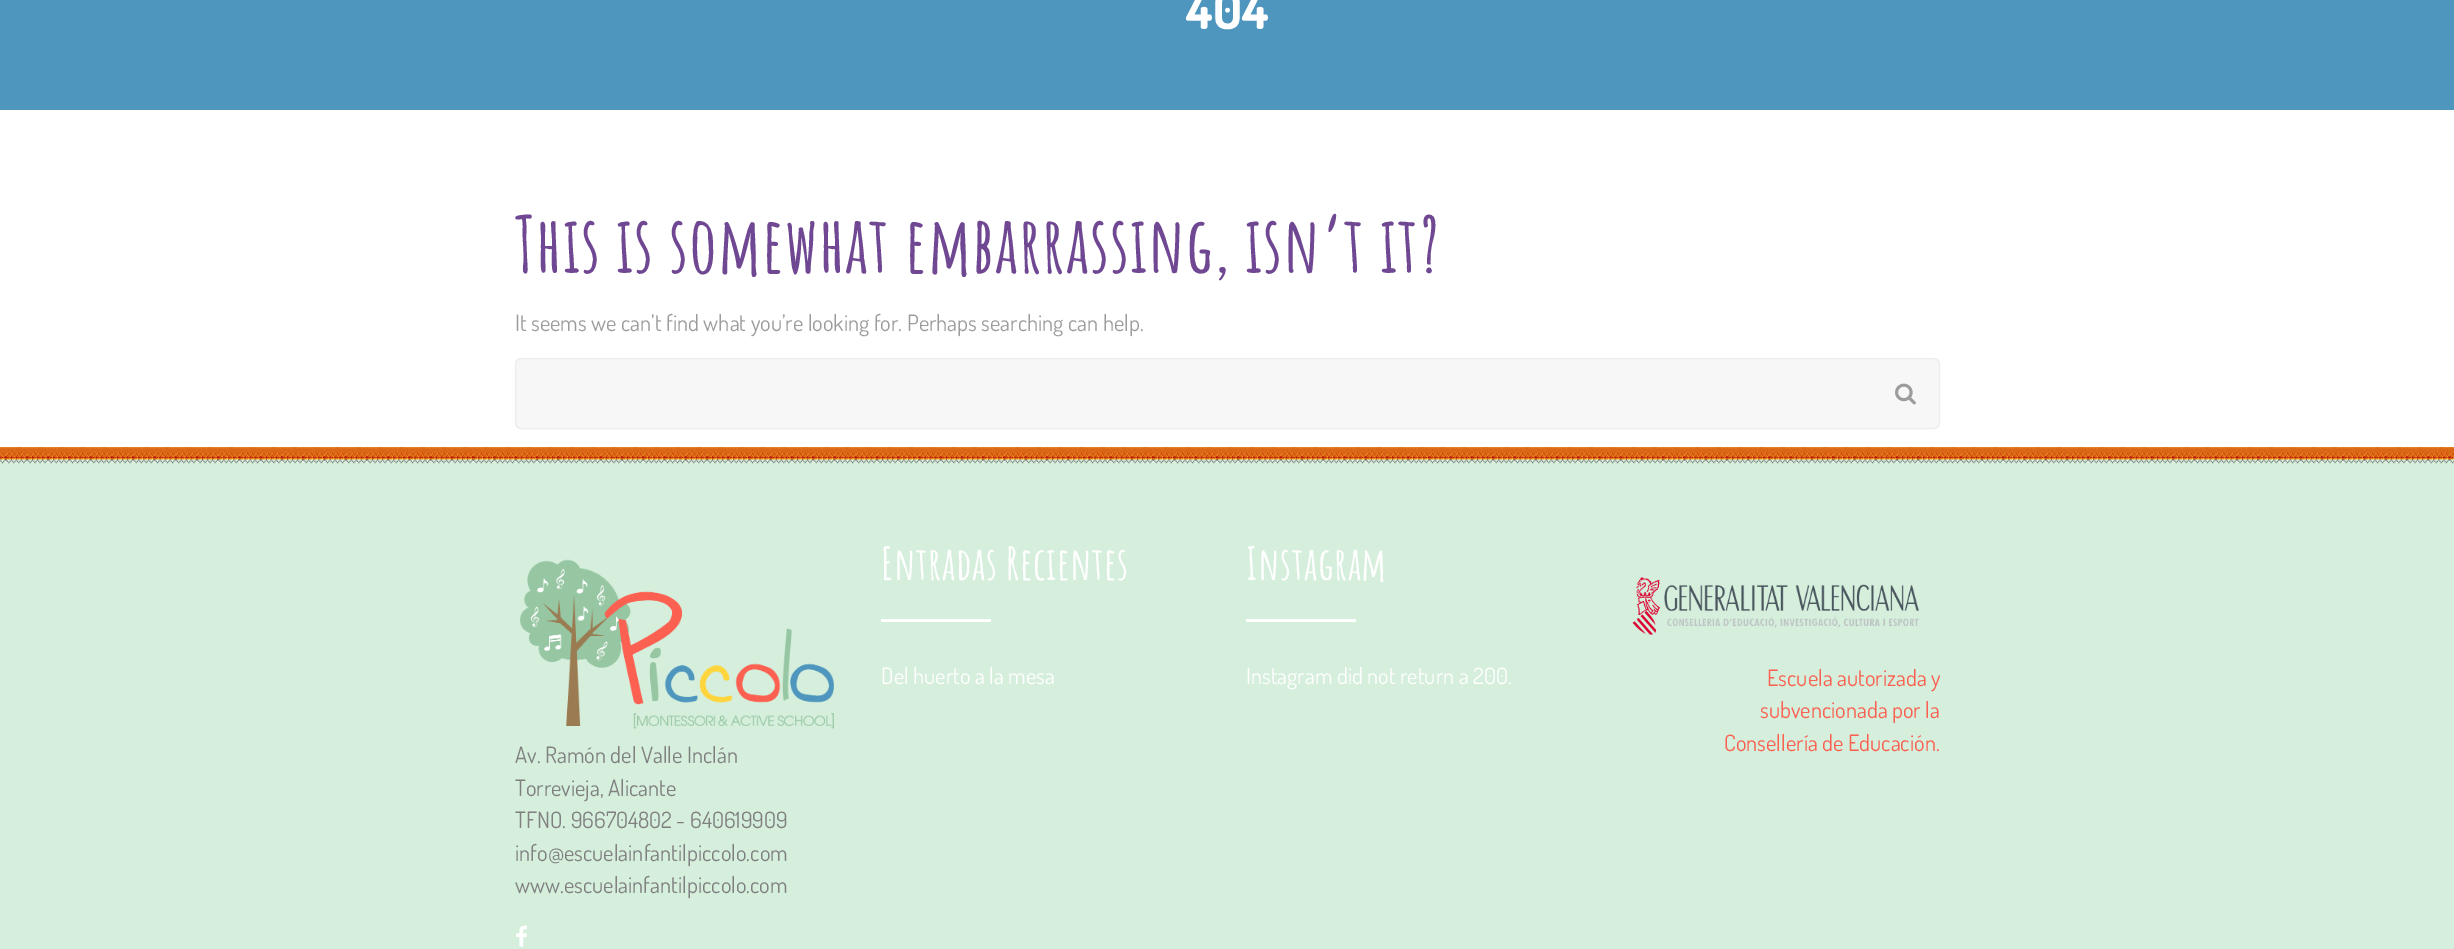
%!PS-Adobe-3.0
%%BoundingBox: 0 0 2454 949
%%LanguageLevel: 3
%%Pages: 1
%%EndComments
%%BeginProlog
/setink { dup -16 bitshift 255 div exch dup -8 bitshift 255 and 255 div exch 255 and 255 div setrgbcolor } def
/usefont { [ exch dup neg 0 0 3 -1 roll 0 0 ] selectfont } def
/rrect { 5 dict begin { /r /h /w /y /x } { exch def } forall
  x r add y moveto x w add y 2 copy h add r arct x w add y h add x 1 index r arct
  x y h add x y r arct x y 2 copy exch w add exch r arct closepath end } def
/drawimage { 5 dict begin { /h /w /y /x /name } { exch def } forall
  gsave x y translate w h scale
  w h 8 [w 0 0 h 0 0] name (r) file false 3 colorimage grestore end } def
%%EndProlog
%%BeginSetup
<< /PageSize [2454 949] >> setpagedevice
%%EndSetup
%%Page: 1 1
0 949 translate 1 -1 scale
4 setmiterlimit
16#FFFFFF setink
0 0 2454 949 rectfill
16#4E96BD setink
0 0 2454 110 rectfill
/Dosis-Bold 52 usefont
16#FFFFFF setink
1186 29 moveto 0.5 0 (404) ashow
/AmaticSC-Bold 77.5 usefont
16#6F4792 setink
515 273 moveto 0.8 0 (This is somewhat embarrassing, isn’t it?) ashow
/Dosis-Regular 22.5 usefont
16#9C9C9C setink
515 331 moveto (It seems we can’t find what you’re looking for. Perhaps searching can help.) show
16#F7F7F7 setink
515.5 358.5 1424 70 5.5 rrect gsave fill grestore
16#EDEDED setink
stroke
(img1.raw) 1895 383 21 22 drawimage
16#D5EFDC setink
0 459 2454 490 rectfill
(img2.raw) 0 447 2454 17 drawimage
/AmaticSC-Bold 45 usefont
16#FFFFFF setink
881 580 moveto 0.5 0 (Entradas Recientes) ashow
881 619 110 3 rectfill
/Dosis-Regular 22.5 usefont
881 684 moveto (Del huerto a la mesa) show
/AmaticSC-Bold 45 usefont
1246 580 moveto 0.5 0 (Instagram) ashow
1246 619 110 3 rectfill
/Dosis-Regular 22.5 usefont
1246 684 moveto (Instagram did not return a 200.) show
(img3.raw) 1632 576 287 59 drawimage
16#FC6051 setink
[
    [(Escuela autorizada y) 1767 686]
    [(subvencionada por la) 1760 718]
    [(Consellería de Educación.) 1724 751]
] { aload pop moveto show } forall
(img4.raw) 520 559 314 170 drawimage
16#808080 setink
[
    [(Av. Ramón del Valle Inclán) 515 763]
    [(Torrevieja, Alicante) 515 796]
    [(TFNO. 966704802 - 640619909) 515 828]
    [(info@escuelainfantilpiccolo.com) 515 861]
    [(www.escuelainfantilpiccolo.com) 515 893]
] { aload pop moveto show } forall
(img5.raw) 516 925 11 22 drawimage
showpage
%%EOF
